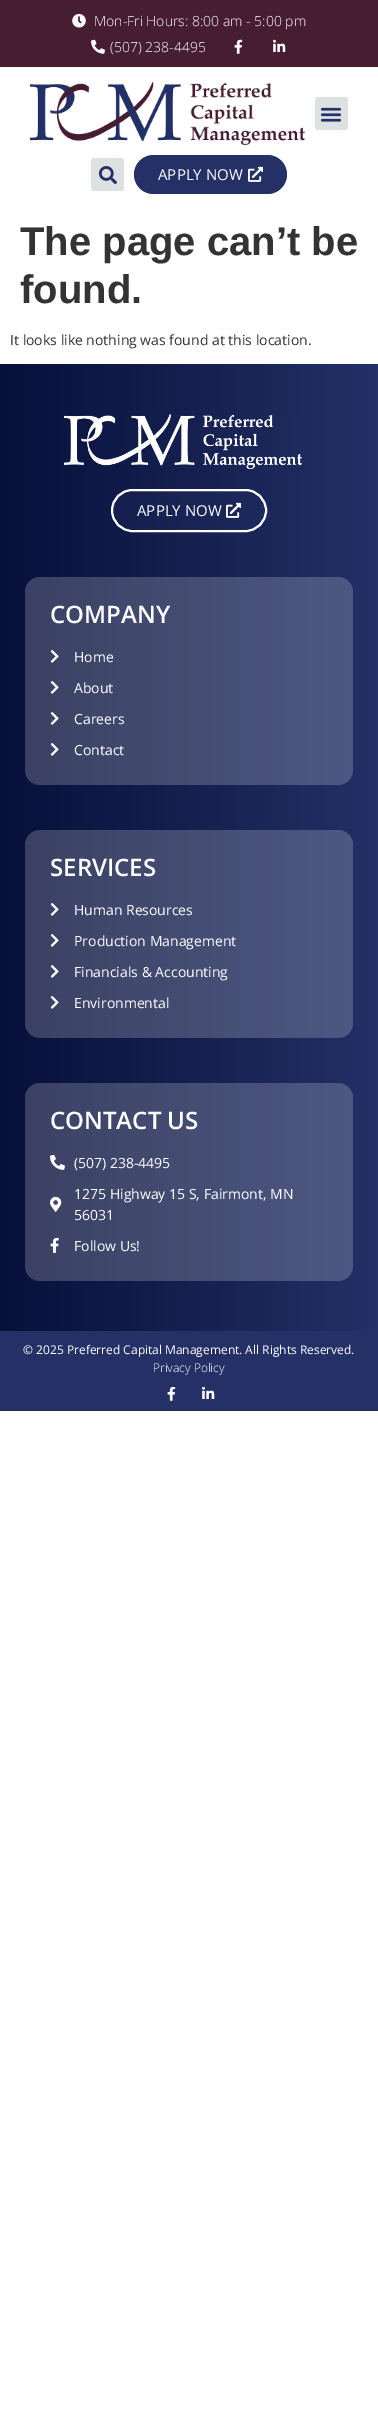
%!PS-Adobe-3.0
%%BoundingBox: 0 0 378 2425
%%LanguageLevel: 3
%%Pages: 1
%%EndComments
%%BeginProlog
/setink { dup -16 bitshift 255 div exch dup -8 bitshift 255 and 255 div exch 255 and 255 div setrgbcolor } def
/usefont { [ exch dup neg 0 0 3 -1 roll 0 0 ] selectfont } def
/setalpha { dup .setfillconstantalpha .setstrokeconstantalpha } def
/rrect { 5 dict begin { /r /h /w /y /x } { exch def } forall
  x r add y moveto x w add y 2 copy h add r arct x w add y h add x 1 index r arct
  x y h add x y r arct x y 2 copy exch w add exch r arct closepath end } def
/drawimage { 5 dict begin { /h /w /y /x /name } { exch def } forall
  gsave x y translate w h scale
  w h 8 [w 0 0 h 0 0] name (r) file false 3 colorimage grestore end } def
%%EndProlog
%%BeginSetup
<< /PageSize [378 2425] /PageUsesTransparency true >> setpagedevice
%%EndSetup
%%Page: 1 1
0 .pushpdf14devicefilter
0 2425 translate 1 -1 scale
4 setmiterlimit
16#FFFFFF setink
0 0 378 2425 rectfill
16#461D31 setink
0 0 378 67 rectfill
(img1.raw) 72 14 14 14 drawimage
/OpenSans-Light 14 usefont
16#FFFFFF setink
94 26 moveto (Mon-Fri Hours: 8:00 am - 5:00 pm) show
(img2.raw) 91 39 14 15 drawimage
110 52 moveto (\(507\) 238-4495) show
(img3.raw) 234 39 9 15 drawimage
(img4.raw) 273 39 13 13 drawimage
(img5.raw) 30 82 275 63 drawimage
16#DEE1E1 setink
315 97 33 33 3 rrect fill
(img6.raw) 320 107 22 15 drawimage
91 158 33 33 3 rrect fill
(img7.raw) 98 166 19 19 drawimage
16#243066 setink
134 155 153 39 19.5 rrect fill
/OpenSans-Regular 15 usefont
16#FFFFFF setink
158 180 moveto (APPLY NOW) show
(img8.raw) 248 166 15 16 drawimage
/LiberationSans-Bold 40 usefont
16#333333 setink
20 255 moveto (The page can’t be) show
20 303 moveto (found.) show
/OpenSans-Regular 14 usefont
10 345 moveto (It looks like nothing was found at this location.) show
gsave 0 364 moveto 378 364 lineto 378 1331 lineto 0 1331 lineto closepath clip newpath
<< /ShadingType 2 /ColorSpace /DeviceRGB /Coords [0 848 378 848] /Extend [true true] /Function << /FunctionType 2 /Domain [0 1] /C0 [0.027 0.063 0.227] /C1 [0.141 0.188 0.4] /N 1 >> >> shfill grestore
(img9.raw) 64 414 238 55 drawimage
0.24 setalpha
16#243066 setink
112 490 154 41 20.5 rrect fill
1 setalpha
16#FFFFFF setink
2 setlinewidth
112 490 154 41 20.5 rrect stroke
/OpenSans-Regular 15 usefont
137 516 moveto (APPLY NOW) show
(img10.raw) 226 502 15 16 drawimage
0.2 setalpha
25 577 328 208 15 rrect fill
/OpenSans-SemiBold 24 usefont
1 setalpha
50 623 moveto (COMPANY) show
(img11.raw) 50 650 9 13 drawimage
/OpenSans-Regular 14 usefont
74 662 moveto (Home) show
(img11.raw) 50 681 9 13 drawimage
74 693 moveto (About) show
(img11.raw) 50 712 9 13 drawimage
74 724 moveto (Careers) show
(img11.raw) 50 743 9 13 drawimage
74 755 moveto (Contact) show
0.2 setalpha
25 830 328 208 15 rrect fill
/OpenSans-SemiBold 24 usefont
1 setalpha
50 876 moveto (SERVICES) show
(img11.raw) 50 903 9 13 drawimage
/OpenSans-Regular 14 usefont
74 915 moveto (Human Resources) show
(img11.raw) 50 934 9 13 drawimage
74 946 moveto (Production Management) show
(img11.raw) 50 965 9 13 drawimage
74 977 moveto (Financials & Accounting) show
(img11.raw) 50 996 9 13 drawimage
74 1008 moveto (Environmental) show
0.2 setalpha
25 1083 328 198 15 rrect fill
/OpenSans-SemiBold 24 usefont
1 setalpha
50 1129 moveto (CONTACT US) show
(img12.raw) 50 1154 15 16 drawimage
/OpenSans-Regular 14 usefont
74 1168 moveto (\(507\) 238-4495) show
(img13.raw) 50 1196 12 16 drawimage
74 1199 moveto (1275 Highway 15 S, Fairmont, MN) show
74 1220 moveto (56031) show
(img14.raw) 50 1237 9 16 drawimage
74 1251 moveto (Follow Us!) show
16#243066 setink
0 1331 378 80 rectfill
/OpenSans-Regular 12 usefont
16#FFFFFF setink
23 1354 moveto (© 2025 Preferred Capital Management. All Rights Reserved.) show
/OpenSans-Light 12 usefont
153 1372 moveto (Privacy Policy) show
(img15.raw) 167 1387 9 14 drawimage
(img16.raw) 202 1387 13 12 drawimage
.poppdf14devicefilter showpage
%%EOF
